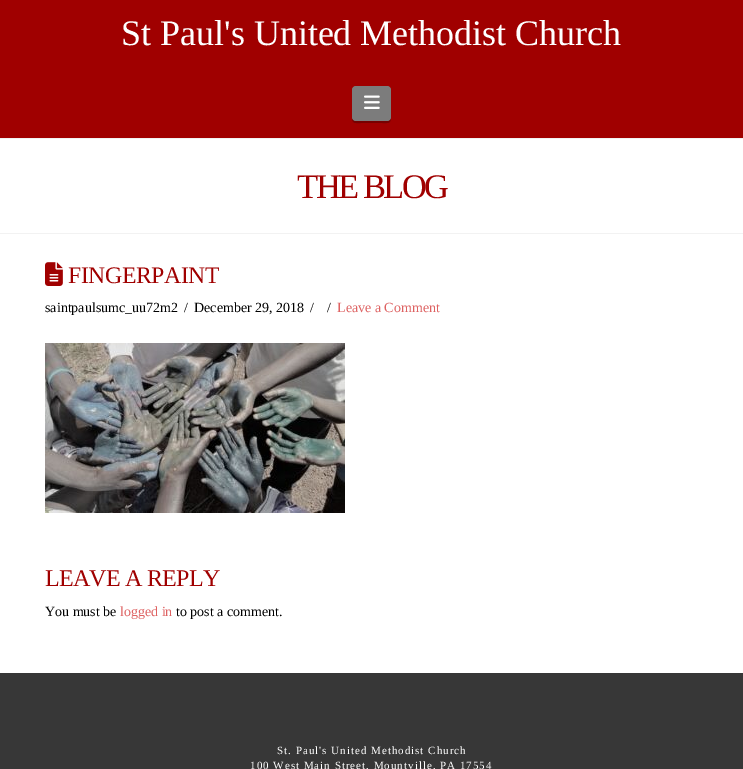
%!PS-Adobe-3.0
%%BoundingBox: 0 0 743 769
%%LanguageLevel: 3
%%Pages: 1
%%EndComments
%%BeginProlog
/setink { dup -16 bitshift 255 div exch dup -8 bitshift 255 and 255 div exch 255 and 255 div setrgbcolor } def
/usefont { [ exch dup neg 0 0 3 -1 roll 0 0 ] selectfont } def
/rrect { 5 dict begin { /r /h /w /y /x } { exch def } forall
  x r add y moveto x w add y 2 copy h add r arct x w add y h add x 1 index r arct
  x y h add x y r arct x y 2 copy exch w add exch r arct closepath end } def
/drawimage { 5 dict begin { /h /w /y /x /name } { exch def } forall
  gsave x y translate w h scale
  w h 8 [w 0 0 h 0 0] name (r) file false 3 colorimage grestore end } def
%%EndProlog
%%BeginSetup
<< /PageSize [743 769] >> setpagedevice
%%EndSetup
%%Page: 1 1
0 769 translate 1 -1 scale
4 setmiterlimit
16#FFFFFF setink
0 0 743 769 rectfill
16#A00000 setink
0 0 743 138 rectfill
/LiberationSerif-Regular 36 usefont
16#FFFFFF setink
121 45 moveto (St Paul's United Methodist Church) show
16#780000 setink
352 117 moveto 352 124 355 123 361 123 curveto 382 123 lineto 388 123 391 124 391 117 curveto 391 119 389 121 387 121 curveto 356 121 lineto 354 121 352 119 352 117 curveto closepath fill
16#7C7C7C setink
352 86 39 35 4 rrect fill
(img1.raw) 364 95 16 14 drawimage
16#F2F2F2 setink
0 138 743 1 rectfill
0 233 743 1 rectfill
/LiberationSerif-Regular 34.5 usefont
16#A00000 setink
297 198 moveto -2.5 0 (THE BLOG) ashow
(img2.raw) 45 262 18 24 drawimage
/LiberationSerif-Regular 23.75 usefont
68 283 moveto -0.4 0 (FINGERPAINT) ashow
/LiberationSerif-Regular 14 usefont
16#000000 setink
[
    [(saintpaulsumc_uu72m2) 45 312]
    [(/) 184 312]
    [(December 29, 2018) 194 312]
    [(/) 310 312]
    [(/) 327 312]
] { aload pop moveto show } forall
16#DE6262 setink
337 312 moveto (Leave a Comment) show
(img3.raw) 45 343 300 170 drawimage
/LiberationSerif-Regular 24 usefont
16#A00000 setink
45 586 moveto -0.75 0 (LEAVE A REPLY) ashow
/LiberationSerif-Regular 14 usefont
16#000000 setink
45 616 moveto (You must be) show
16#DE6262 setink
120 616 moveto (logged in) show
16#000000 setink
176 616 moveto (to post a comment.) show
16#373737 setink
0 673 743 96 rectfill
/LiberationSerif-Regular 11 usefont
16#FFFFFF setink
277 754 moveto 1 0 (St. Paul's United Methodist Church) ashow
250 769 moveto 1 0 (100 West Main Street, Mountville, PA 17554) ashow
showpage
%%EOF
